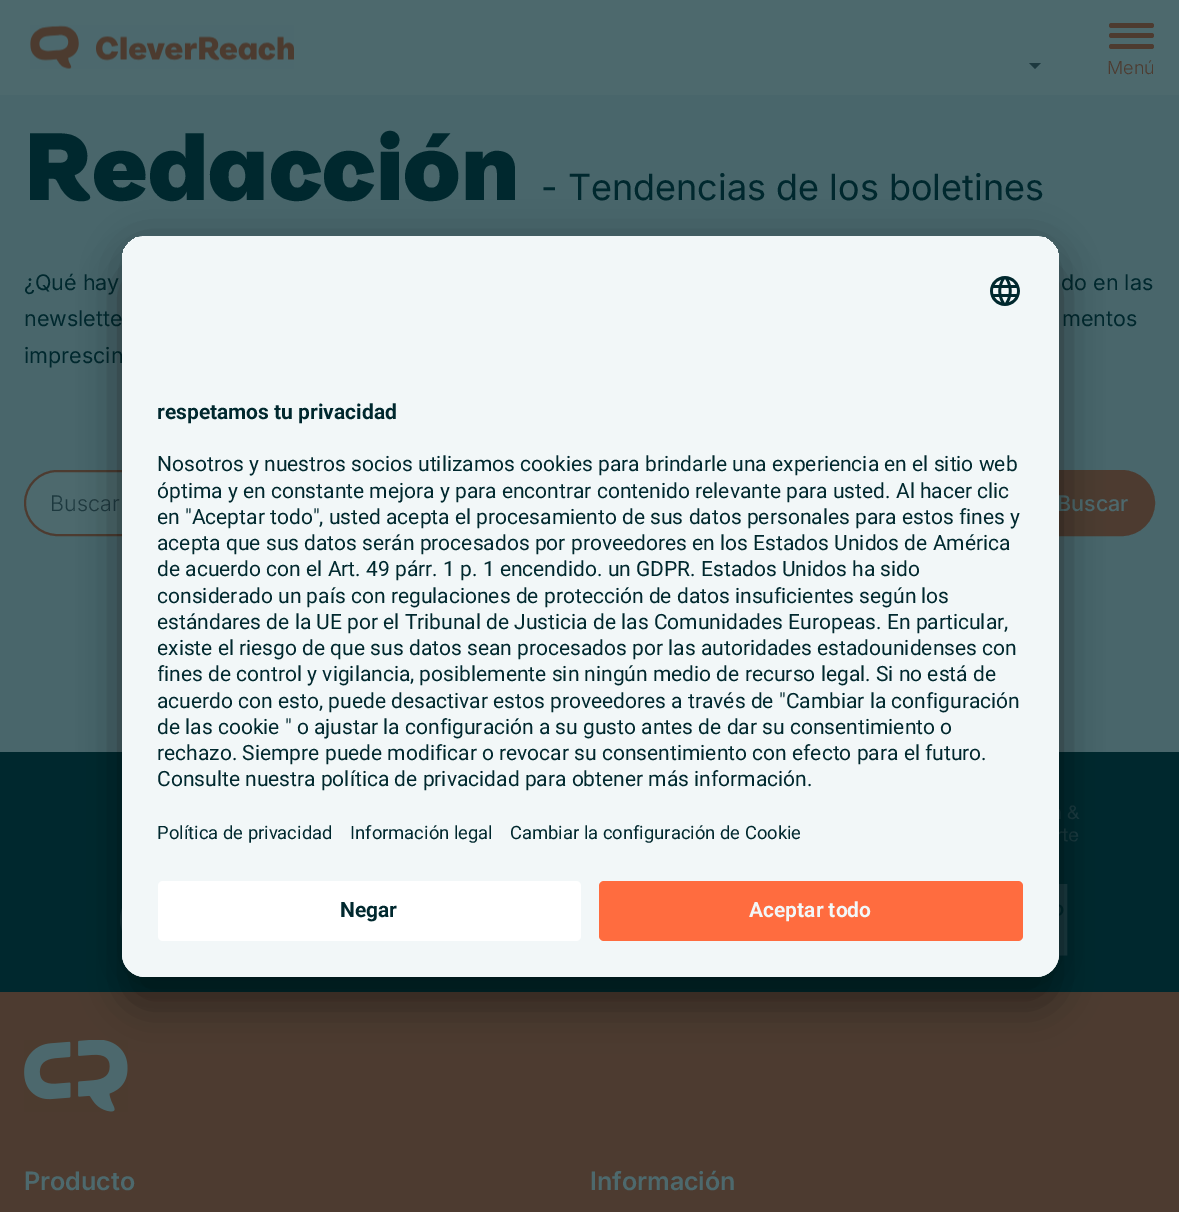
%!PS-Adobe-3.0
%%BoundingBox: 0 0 1179 1212
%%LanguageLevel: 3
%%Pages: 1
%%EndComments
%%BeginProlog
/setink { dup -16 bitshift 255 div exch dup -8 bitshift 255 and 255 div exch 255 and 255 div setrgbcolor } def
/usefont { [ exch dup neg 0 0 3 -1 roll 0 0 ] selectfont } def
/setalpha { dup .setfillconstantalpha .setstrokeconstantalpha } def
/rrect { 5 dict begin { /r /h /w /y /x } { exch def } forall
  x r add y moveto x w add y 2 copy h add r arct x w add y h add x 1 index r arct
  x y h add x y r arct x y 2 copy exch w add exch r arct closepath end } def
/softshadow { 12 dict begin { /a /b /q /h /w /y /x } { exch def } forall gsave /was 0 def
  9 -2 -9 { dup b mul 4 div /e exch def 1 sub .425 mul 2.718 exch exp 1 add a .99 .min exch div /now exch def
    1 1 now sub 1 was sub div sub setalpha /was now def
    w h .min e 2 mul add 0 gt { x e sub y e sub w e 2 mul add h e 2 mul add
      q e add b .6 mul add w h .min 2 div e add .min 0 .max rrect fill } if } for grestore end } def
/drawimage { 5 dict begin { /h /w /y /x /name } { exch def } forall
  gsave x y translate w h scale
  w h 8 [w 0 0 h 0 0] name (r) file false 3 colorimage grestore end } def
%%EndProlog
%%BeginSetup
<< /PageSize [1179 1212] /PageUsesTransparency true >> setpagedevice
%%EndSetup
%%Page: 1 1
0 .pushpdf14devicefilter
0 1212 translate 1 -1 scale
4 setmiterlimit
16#49666B setink
0 0 1179 1212 rectfill
16#4D696D setink
0 0 1179 95 rectfill
(img1.raw) 30 25 264 44 drawimage
16#1D393F setink
1029 63 moveto 1041 63 lineto 1035 69 lineto closepath fill
16#4D3B30 setink
1109 23 45 5 2.5 rrect fill
1109 33 45 5 2.5 rrect fill
1109 44 45 5 2.5 rrect fill
/Inter-Light 18 usefont
1107 74 moveto (Menú) show
/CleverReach-Black 96 usefont
16#00282E setink
24 200 moveto (Redacción) show
/Inter-Regular 36 usefont
541 200 moveto (- Tendencias de los boletines) show
/Inter-Regular 21.5 usefont
[
    [(¿Qué hay) 24 290]
    [(do en las) 1061 290]
    [(newslette) 24 326]
    [(mentos) 1062 326]
    [(imprescin) 24 363]
] { aload pop moveto show } forall
16#4D696D setink
57 471 moveto 1030 471 lineto 1030 535 lineto 57 535 lineto 39.5 535 25 520.5 25 503 curveto 25 485.5 39.5 471 57 471 curveto closepath gsave fill grestore
16#4D3B30 setink
2 setlinewidth
stroke
/Inter-Light 21.5 usefont
16#1D393F setink
50 511 moveto (Buscar) show
16#4D3B30 setink
1032 471 moveto 1122 471 lineto 1139.5 471 1154 485.5 1154 503 curveto 1154 520.5 1139.5 535 1122 535 curveto 1032 535 lineto closepath gsave fill grestore
stroke
/Inter-Medium 21.5 usefont
16#4D696D setink
1057 511 moveto (Buscar) show
16#00282E setink
0 752 1179 240 rectfill
(img3.raw) 1059 805 21 37 drawimage
(img4.raw) 120 908 2 23 drawimage
(img5.raw) 1058 884 10 72 drawimage
16#4D3B30 setink
0 992 1179 220 rectfill
(img6.raw) 24 1040 104 72 drawimage
16#000000 setink
122 266 937 741 23 21 0.3 softshadow
122 243 937 741 23 19.5 0.22 softshadow
16#F2F7F8 setink
122 236 937 741 23 rrect fill
gsave
122 236 937 741 23 rrect clip newpath
145 236 moveto 1036 236 lineto 1048.5 236 1059 246.5 1059 259 curveto 1059 869 lineto 122 869 lineto 122 259 lineto 122 246.5 132.5 236 145 236 curveto closepath clip newpath
122 237 937 632 rectfill
grestore
(img2.raw) 990 276 30 30 drawimage
gsave
158 393 865 407 rectclip
/Roboto-Bold 21 usefont
16#00282E setink
157 419 moveto (respetamos tu privacidad) show
grestore
/Roboto-Regular 21 usefont
16#00282E setink
157 471 moveto (Nosotros y nuestros socios utilizamos cookies para brindarle una experiencia en el sitio web) show
gsave
158 393 865 407 rectclip
157 498 moveto (óptima y en constante mejora y para encontrar contenido relevante para usted. Al hacer clic) show
157 524 moveto (en "Aceptar todo", usted acepta el procesamiento de sus datos personales para estos fines y) show
grestore
157 550 moveto (acepta que sus datos serán procesados por proveedores en los Estados Unidos de América) show
gsave
158 393 865 407 rectclip
[
    [(de acuerdo con el Art. 49 párr. 1 p. 1 encendido. un GDPR. Estados Unidos ha sido) 157 576]
    [(considerado un país con regulaciones de protección de datos insuficientes según los) 157 603]
    [(estándares de la UE por el Tribunal de Justicia de las Comunidades Europeas. En particular,) 157 629]
    [(existe el riesgo de que sus datos sean procesados por las autoridades estadounidenses con) 157 655]
    [(fines de control y vigilancia, posiblemente sin ningún medio de recurso legal. Si no está de) 157 681]
] { aload pop moveto show } forall
grestore
157 708 moveto (acuerdo con esto, puede desactivar estos proveedores a través de "Cambiar la configuración) show
gsave
158 393 865 407 rectclip
157 734 moveto (de las cookie " o ajustar la configuración a su gusto antes de dar su consentimiento o) show
grestore
157 760 moveto (rechazo. Siempre puede modificar o revocar su consentimiento con efecto para el futuro.) show
157 786 moveto (Consulte nuestra política de privacidad para obtener más información.) show
/Roboto-Regular 18.4 usefont
[
    [(Política de privacidad) 157 839]
    [(Información legal) 350 839]
    [(Cambiar la configuración de Cookie) 510 839]
] { aload pop moveto show } forall
16#F2F7F8 setink
122 869 moveto 1059 869 lineto 1059 954 lineto 1059 966.5 1048.5 977 1036 977 curveto 145 977 lineto 132.5 977 122 966.5 122 954 curveto closepath fill
16#FFFFFF setink
158 881 423 60 5 rrect fill
/Roboto-Bold 21 usefont
16#00282E setink
340 917 moveto (Negar) show
16#FF6C3F setink
599 881 424 60 5 rrect fill
16#F2F7F8 setink
749 917 moveto (Aceptar todo) show
/Inter-SemiBold 25.25 usefont
16#4D696D setink
24 1190 moveto (Producto) show
590 1190 moveto (Información) show
.poppdf14devicefilter showpage
%%EOF
